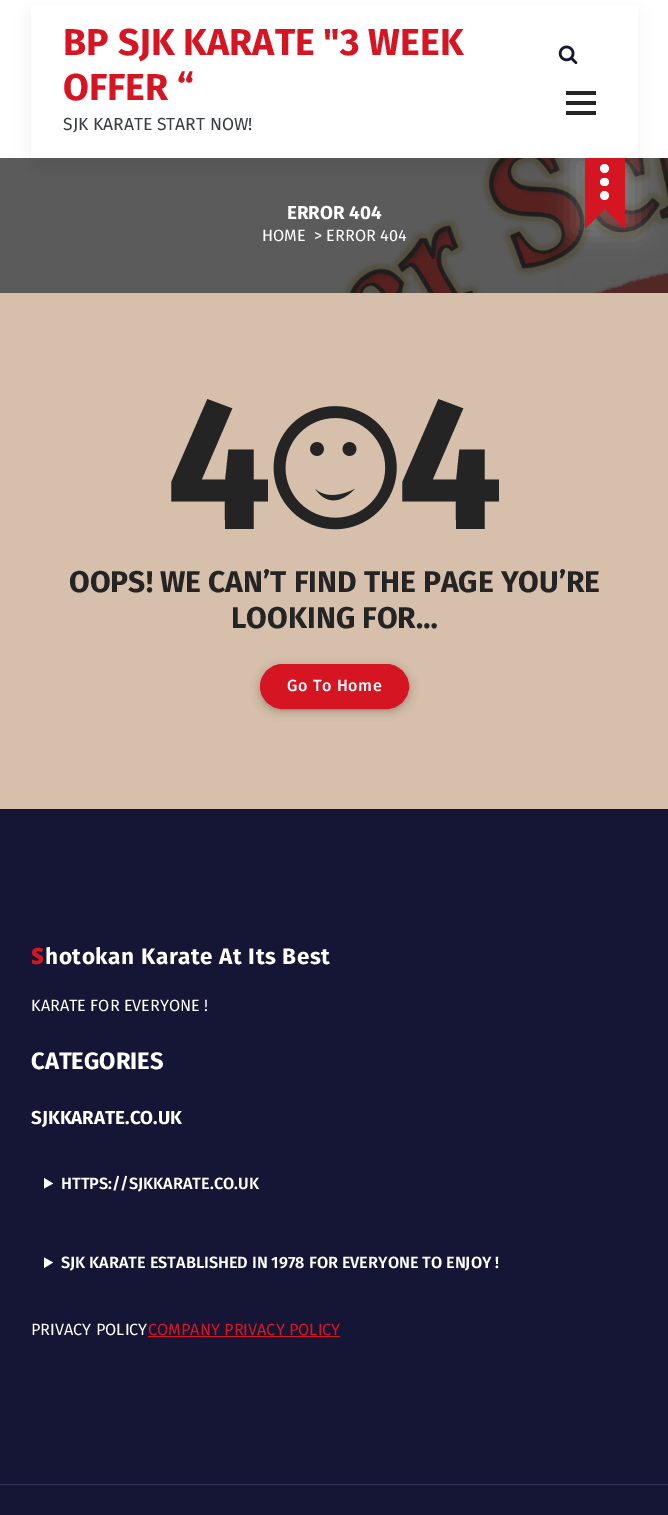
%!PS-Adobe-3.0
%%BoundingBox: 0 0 668 1515
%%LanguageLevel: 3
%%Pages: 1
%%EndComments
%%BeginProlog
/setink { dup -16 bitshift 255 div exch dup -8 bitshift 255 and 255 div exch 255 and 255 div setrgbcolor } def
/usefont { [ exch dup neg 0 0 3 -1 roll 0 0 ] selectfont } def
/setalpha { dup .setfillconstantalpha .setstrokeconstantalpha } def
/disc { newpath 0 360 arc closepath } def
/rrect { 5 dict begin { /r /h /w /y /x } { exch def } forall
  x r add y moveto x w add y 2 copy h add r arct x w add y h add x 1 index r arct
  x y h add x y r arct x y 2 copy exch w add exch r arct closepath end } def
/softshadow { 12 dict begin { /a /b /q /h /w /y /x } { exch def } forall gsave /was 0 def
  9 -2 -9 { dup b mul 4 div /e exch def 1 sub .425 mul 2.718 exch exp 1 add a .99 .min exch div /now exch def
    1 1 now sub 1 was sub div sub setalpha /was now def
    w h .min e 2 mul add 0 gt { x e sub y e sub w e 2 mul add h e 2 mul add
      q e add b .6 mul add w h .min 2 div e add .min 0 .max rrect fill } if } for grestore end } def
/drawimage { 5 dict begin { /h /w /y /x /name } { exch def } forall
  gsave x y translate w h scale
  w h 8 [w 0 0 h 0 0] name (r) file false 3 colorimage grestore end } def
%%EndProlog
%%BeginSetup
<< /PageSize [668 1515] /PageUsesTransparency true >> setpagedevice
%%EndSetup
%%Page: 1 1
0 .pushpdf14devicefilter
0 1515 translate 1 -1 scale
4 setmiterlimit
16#D6BFAB setink
0 0 668 1515 rectfill
16#FFFFFF setink
0 0 668 158 rectfill
(img2.raw) 0 158 668 135 drawimage
16#000000 setink
31 13 607 157 0 9.5 0.05 softshadow
16#FFFFFF setink
31 5 607 153 rectfill
/FiraSans-Bold 37.5 usefont
16#D61523 setink
63 55 moveto (BP SJK KARATE "3 WEEK) show
63 100 moveto (OFFER “) show
/FiraSans-Regular 17.5 usefont
16#383E41 setink
63 130 moveto (SJK KARATE START NOW!) show
(img1.raw) 558 45 20 20 drawimage
[
    [566 91 30 4 16#242424]
    [566 101 30 4 16#242424]
    [566 111 30 4 16#242424]
] { aload pop setink rectfill } forall
16#FFFFFF setink
573 158 65 75 0 12.5 0.2 softshadow
16#D61523 setink
585 158 40 50 rectfill
16#FFFFFF setink
600 178 9 8 4 rrect fill
604.5 168.5 4.5 disc fill
16#D61523 setink
625 189 moveto 625 229 lineto 605 209 lineto closepath 585 229 moveto 585 189 lineto 605 209 lineto closepath fill
16#FFFFFF setink
604.5 195.5 4.5 disc fill
/FiraSans-Bold 18.75 usefont
287 219 moveto (ERROR 404) show
/FiraSans-Regular 16.25 usefont
262 241 moveto (HOME) show
314 241 moveto (> ERROR 404) show
/FiraSans-Bold 188 usefont
16#242424 setink
166 529 moveto (4) show
(img3.raw) 273 406 124 124 drawimage
397 529 moveto (4) show
/FiraSans-Bold 30 usefont
69 592 moveto (OOPS! WE CAN’T FIND THE PAGE YOU’RE) show
231 628 moveto (LOOKING FOR…) show
16#000000 setink
261 668 147 42 21 5 0.32 softshadow
16#D61523 setink
260.5 664.5 148 44 22 rrect gsave fill grestore
stroke
/FiraSans-Medium 16.25 usefont
16#FFFFFF setink
287 691 moveto 0.6 0 (Go To Home) ashow
16#151535 setink
0 809 668 706 rectfill
16#34344B setink
0 1484 668 1 rectfill
/NotoSans-Black 22.5 usefont
16#D61523 setink
31 964 moveto 0.6 0 (S) ashow
/FiraSans-Bold 22.5 usefont
16#FFFFFF setink
45 964 moveto 0.6 0 (hotokan Karate At Its Best) ashow
/FiraSans-Regular 16.25 usefont
31 1011 moveto (KARATE FOR EVERYONE !) show
/FiraSans-Bold 23.75 usefont
31 1069 moveto (CATEGORIES) show
/FiraSans-Bold 18.75 usefont
31 1124 moveto (SJKKARATE.CO.UK) show
44 1178 moveto 53 1183.5 lineto 44 1188.5 lineto closepath fill
/FiraSans-SemiBold 16.25 usefont
61 1189 moveto (HTTPS://SJKKARATE.CO.UK) show
44 1257.5 moveto 53 1262.5 lineto 44 1268 lineto closepath fill
61 1268 moveto (SJK KARATE ESTABLISHED IN 1978 FOR EVERYONE TO ENJOY !) show
/FiraSans-Regular 16.25 usefont
31 1335 moveto (PRIVACY POLICY) show
16#D61523 setink
148 1335 moveto (COMPANY PRIVACY POLICY) show
148 1336 192 1 rectfill
.poppdf14devicefilter showpage
%%EOF
